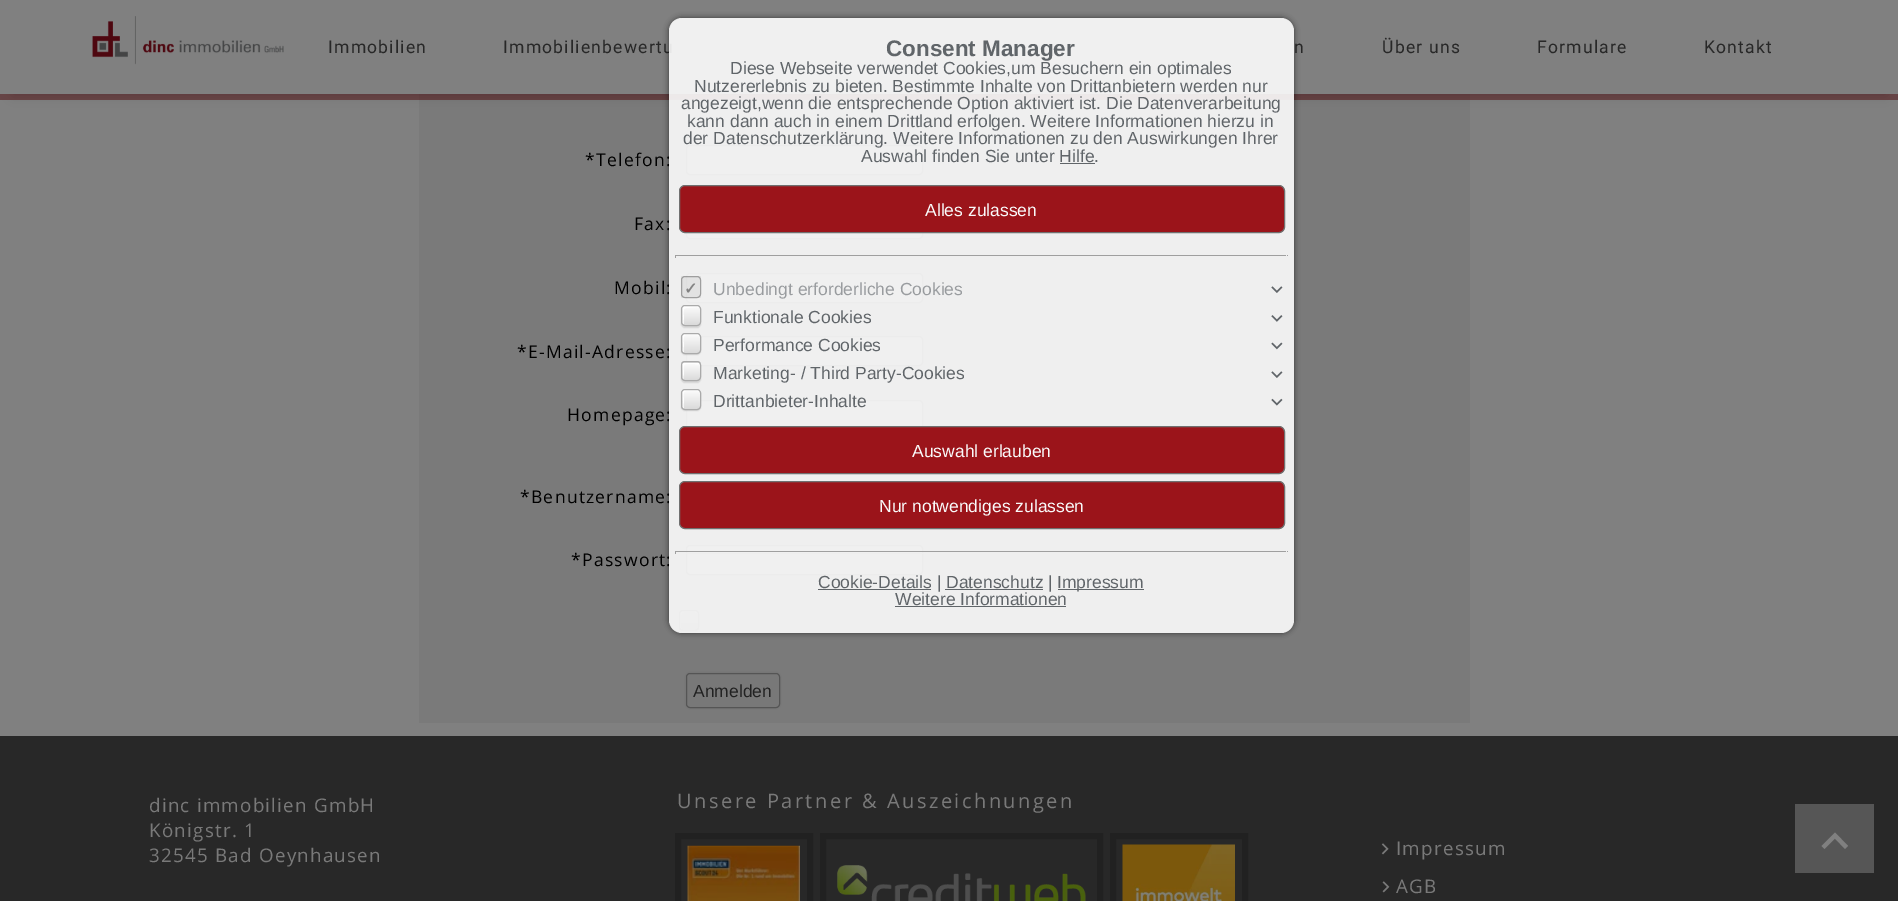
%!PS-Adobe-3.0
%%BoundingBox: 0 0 1898 901
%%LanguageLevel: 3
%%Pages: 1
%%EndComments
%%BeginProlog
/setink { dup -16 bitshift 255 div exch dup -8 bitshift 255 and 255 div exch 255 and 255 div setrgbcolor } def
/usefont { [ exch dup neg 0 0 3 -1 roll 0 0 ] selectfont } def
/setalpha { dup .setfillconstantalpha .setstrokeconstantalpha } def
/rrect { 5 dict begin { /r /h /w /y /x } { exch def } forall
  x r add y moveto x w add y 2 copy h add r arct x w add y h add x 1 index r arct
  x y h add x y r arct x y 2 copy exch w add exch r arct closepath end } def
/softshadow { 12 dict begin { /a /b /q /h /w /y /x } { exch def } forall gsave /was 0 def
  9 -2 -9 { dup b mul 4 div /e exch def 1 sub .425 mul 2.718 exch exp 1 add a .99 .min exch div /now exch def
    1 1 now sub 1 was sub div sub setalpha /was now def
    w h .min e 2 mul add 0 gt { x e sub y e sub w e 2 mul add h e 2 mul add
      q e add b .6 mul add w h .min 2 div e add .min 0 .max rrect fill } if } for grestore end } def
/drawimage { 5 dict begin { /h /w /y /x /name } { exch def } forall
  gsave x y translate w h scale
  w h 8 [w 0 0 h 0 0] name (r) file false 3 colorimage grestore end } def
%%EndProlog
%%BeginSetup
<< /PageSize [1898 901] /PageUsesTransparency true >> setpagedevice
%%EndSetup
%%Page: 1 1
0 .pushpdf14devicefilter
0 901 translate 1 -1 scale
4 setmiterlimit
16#282828 setink
0 0 1898 901 rectfill
16#808080 setink
0 94 1898 642 rectfill
16#7A7A7A setink
419 94 1051 629 rectfill
16#000000 setink
13 25 1873 69 0 6 0.2 softshadow
16#808080 setink
0 0 1898 94 rectfill
(img1.raw) 92 16 192 49 drawimage
/Roboto-Regular 17.5 usefont
16#282828 setink
328 53 moveto 1.25 0 (Immobilien) ashow
503 53 moveto 1.25 0 (Immobilienbewertu) ashow
1294 53 moveto 1.25 0 (n) ashow
1382 53 moveto 1.25 0 (Über uns) ashow
1537 53 moveto 1.25 0 (Formulare) ashow
1704 53 moveto 1.25 0 (Kontakt) ashow
0.5 setalpha
16#4E0A0D setink
0 94 1898 6 rectfill
/OpenSans-Regular 17.5 usefont
1 setalpha
16#000000 setink
585 166 moveto 1.25 0 (*Telefon:) ashow
686 145 237 30 4 2 0.1 softshadow
16#7E7E7E setink
686.5 145.5 236 29 3.5 rrect gsave fill grestore
16#555555 setink
stroke
16#000000 setink
634 230 moveto 1.25 0 (Fax:) ashow
686 209 237 30 4 2 0.1 softshadow
16#7E7E7E setink
686.5 209.5 236 29 3.5 rrect gsave fill grestore
16#555555 setink
stroke
16#000000 setink
614 294 moveto 1.25 0 (Mobil:) ashow
686 273 237 30 4 2 0.1 softshadow
16#7E7E7E setink
686.5 273.5 236 29 3.5 rrect gsave fill grestore
16#555555 setink
stroke
16#000000 setink
517 358 moveto 1.25 0 (*E-Mail-Adresse:) ashow
686 336 237 30 4 2 0.1 softshadow
16#7E7E7E setink
686.5 336.5 236 29 3.5 rrect gsave fill grestore
16#555555 setink
stroke
16#000000 setink
567 421 moveto 1.25 0 (Homepage:) ashow
686 400 237 30 4 2 0.1 softshadow
16#7E7E7E setink
686.5 400.5 236 29 3.5 rrect gsave fill grestore
16#555555 setink
stroke
16#000000 setink
520 503 moveto 1.25 0 (*Benutzername:) ashow
686 481 237 30 4 2 0.1 softshadow
571 566 moveto 1.25 0 (*Passwort:) ashow
686 545 237 30 4 2 0.1 softshadow
16#7E7E7E setink
686.5 545.5 236 29 3.5 rrect gsave fill grestore
16#555555 setink
stroke
16#000000 setink
679 611 20 22 4 0.5 0.1 softshadow
gsave
679 610 20 21 4 rrect clip newpath
gsave 679 611 moveto 699 611 lineto 699 630 lineto 679 630 lineto closepath clip newpath
<< /ShadingType 2 /ColorSpace /DeviceRGB /Coords [689 611 689 630] /Extend [true true] /Function << /FunctionType 2 /Domain [0 1] /C0 [0.494 0.494 0.494] /C1 [0.427 0.427 0.427] /N 1 >> >> shfill grestore
grestore
16#808080 setink
684 612 moveto 687.5 612 695.5 611 698 613 curveto 697.5 612 696.5 611 695.5 611 curveto 682.5 611 lineto 681 611 680 612 680 613.5 curveto 680 627.5 lineto 680 628.5 680.5 629.5 681.5 629.5 curveto 681 628 lineto 681 617 lineto 681.5 614 lineto 682 613 682.5 612 684 612 curveto closepath fill
16#555555 setink
679.5 610.5 19 20 3.5 rrect stroke
16#000000 setink
686 673 94 35 4 2 0.1 softshadow
16#787878 setink
686.5 673.5 93 34 3.5 rrect gsave fill grestore
16#555555 setink
stroke
/LiberationSans-Regular 17.5 usefont
16#222222 setink
693 697 moveto (Anmelden) show
gsave
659 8 moveto 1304 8 lineto 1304 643 lineto 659 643 lineto closepath 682 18 moveto 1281 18 lineto 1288 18 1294 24 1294 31 curveto 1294 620 lineto 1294 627 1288 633 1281 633 curveto 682 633 lineto 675 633 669 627 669 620 curveto 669 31 lineto 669 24 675 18 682 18 curveto closepath eoclip newpath
16#000000 setink
669 18 625 615 13 3 0.6 softshadow
grestore
0.9 setalpha
16#FCFCFC setink
669 18 625 615 13 rrect fill
/LiberationSans-Bold 22.5 usefont
1 setalpha
16#606569 setink
886 56 moveto (Consent Manager) show
/LiberationSans-Regular 17.5 usefont
[
    [(Diese Webseite verwendet Cookies,um Besuchern ein optimales) 730 74]
    [(Nutzererlebnis zu bieten. Bestimmte Inhalte von Drittanbietern werden nur) 694 92]
    [(angezeigt,wenn die entsprechende Option aktiviert ist. Die Datenverarbeitung) 681 109]
    [(kann dann auch in einem Drittland erfolgen. Weitere Informationen hierzu in) 687 127]
    [(der Datenschutzerklärung. Weitere Informationen zu den Auswirkungen Ihrer) 683 144]
    [(Auswahl finden Sie unter Hilfe.) 861 162]
] { aload pop moveto show } forall
1060 163 35 1 rectfill
16#9B141A setink
679.5 185.5 605 47 5.5 rrect gsave fill grestore
16#707070 setink
stroke
16#F9F9F9 setink
925 216 moveto (Alles zulassen) show
[
    [675 255 613 1 16#9F9F9F]
    [1286 255 1 3 16#EEEEEE]
    [675 255 1 3 16#9F9F9F]
] { aload pop setink rectfill } forall
0.06 setalpha
[
    [681 276 20 22 16#000000]
] { aload pop setink rectfill } forall
0.3 setalpha
681.5 276.5 19 21 3.5 rrect stroke
/DejaVuSans-Bold 16 usefont
1 setalpha
16#828282 setink
684 294 moveto (✓) show
/LiberationSans-Regular 17.5 usefont
16#999C9F setink
713 295 moveto (Unbedingt erforderliche Cookies) show
(img2.raw) 1271 286 12 7 drawimage
16#000000 setink
681 306 20 22 4 0.5 0.1 softshadow
gsave
681 305 20 21 4 rrect clip newpath
gsave 681 306 moveto 701 306 lineto 701 325 lineto 681 325 lineto closepath clip newpath
<< /ShadingType 2 /ColorSpace /DeviceRGB /Coords [691 306 691 325] /Extend [true true] /Function << /FunctionType 2 /Domain [0 1] /C0 [0.988 0.988 0.988] /C1 [0.855 0.855 0.855] /N 1 >> >> shfill grestore
grestore
16#FFFFFF setink
686 308 moveto 690.5 308 695.5 306 699.5 307.5 curveto 698.5 305 695.5 306 693.5 306 curveto 681 306 683 305 683 318 curveto 683 319.5 682 323 684 324.5 curveto 683 322.5 684 319 684 317 curveto 683.5 313 lineto 684 309.5 lineto 684 308.5 685 308 686 308 curveto closepath fill
16#AAAAAA setink
681.5 305.5 19 20 3.5 rrect stroke
16#606569 setink
713 323 moveto (Funktionale Cookies) show
(img3.raw) 1271 315 12 7 drawimage
16#000000 setink
681 334 20 21 4 0.5 0.1 softshadow
gsave
681 333 20 21 4 rrect clip newpath
gsave 681 334 moveto 701 334 lineto 701 353 lineto 681 353 lineto closepath clip newpath
<< /ShadingType 2 /ColorSpace /DeviceRGB /Coords [691 334 691 353] /Extend [true true] /Function << /FunctionType 2 /Domain [0 1] /C0 [0.988 0.988 0.988] /C1 [0.855 0.855 0.855] /N 1 >> >> shfill grestore
grestore
16#FFFFFF setink
686 335 moveto 690.5 335 695.5 334 699.5 335.5 curveto 698.5 333 695.5 334 693.5 334 curveto 682 334 683 332 683 343.5 curveto 683 348 lineto 683 349.5 682.5 351.5 684 352.5 curveto 683.5 350.5 lineto 684 344 lineto 683.5 340 lineto 684 336.5 lineto 684 335.5 685 335 686 335 curveto closepath fill
16#AAAAAA setink
681.5 333.5 19 20 3.5 rrect stroke
16#606569 setink
713 351 moveto (Performance Cookies) show
(img4.raw) 1271 342 12 8 drawimage
16#000000 setink
681 363 20 20 4 0.5 0.1 softshadow
gsave
681 361 20 20 4 rrect clip newpath
gsave 681 361 moveto 701 361 lineto 701 363 lineto 681 363 lineto closepath clip newpath
<< /ShadingType 2 /ColorSpace /DeviceRGB /Coords [691 345 691 363] /Extend [true true] /Function << /FunctionType 2 /Domain [0 1] /C0 [0.988 0.988 0.988] /C1 [0.855 0.855 0.855] /N 1 >> >> shfill grestore
gsave 681 363 moveto 701 363 lineto 701 380 lineto 681 380 lineto closepath clip newpath
<< /ShadingType 2 /ColorSpace /DeviceRGB /Coords [691 363 691 380] /Extend [true true] /Function << /FunctionType 2 /Domain [0 1] /C0 [0.988 0.988 0.988] /C1 [0.855 0.855 0.855] /N 1 >> >> shfill grestore
grestore
16#FFFFFF setink
686 364 moveto 695 364 lineto 699.5 364.5 lineto 699.5 363.5 698.5 363 697.5 363 curveto 685.5 363 lineto 684 363 683 364 683 365.5 curveto 683 377.5 lineto 683 378 683.5 379 683.5 379 curveto 683 377 684 374.5 684 372 curveto 683.5 368 lineto 684 365.5 lineto 684 364.5 685 364 686 364 curveto closepath fill
16#AAAAAA setink
681.5 361.5 19 19 3.5 rrect stroke
16#606569 setink
713 379 moveto (Marketing- / Third Party-Cookies) show
(img2.raw) 1271 371 12 7 drawimage
16#000000 setink
681 390 20 21 4 0.5 0.1 softshadow
gsave
681 389 20 21 4 rrect clip newpath
gsave 681 390 moveto 701 390 lineto 701 409 lineto 681 409 lineto closepath clip newpath
<< /ShadingType 2 /ColorSpace /DeviceRGB /Coords [691 390 691 409] /Extend [true true] /Function << /FunctionType 2 /Domain [0 1] /C0 [0.988 0.988 0.988] /C1 [0.855 0.855 0.855] /N 1 >> >> shfill grestore
grestore
16#FFFFFF setink
686 391 moveto 690.5 391 695.5 390 699.5 391.5 curveto 698.5 389 695.5 390 693.5 390 curveto 681 390 683 389 683 402 curveto 683 403.5 682 407.5 684 408.5 curveto 683.5 406.5 lineto 684 400.5 lineto 683.5 394.5 lineto 684 392.5 lineto 684 391.5 685 391 686 391 curveto closepath fill
16#AAAAAA setink
681.5 389.5 19 20 3.5 rrect stroke
16#606569 setink
713 407 moveto (Drittanbieter-Inhalte) show
(img5.raw) 1271 398 12 8 drawimage
16#9B141A setink
679.5 426.5 605 47 5.5 rrect gsave fill grestore
16#707070 setink
stroke
16#F9F9F9 setink
912 457 moveto (Auswahl erlauben) show
16#9B141A setink
679.5 481.5 605 47 5.5 rrect gsave fill grestore
16#707070 setink
stroke
16#F9F9F9 setink
879 512 moveto (Nur notwendiges zulassen) show
[
    [675 551 613 1 16#9F9F9F]
    [1286 551 1 3 16#EEEEEE]
    [686 553 237 1 16#EEEEEE]
    [675 551 1 3 16#9F9F9F]
    [818 589 113 1 16#606569]
] { aload pop setink rectfill } forall
818 588 moveto (Cookie-Details | Datenschutz |) show
1058 589 86 1 rectfill
1057 588 moveto (Impressum) show
945 589 98 1 rectfill
895 605 moveto (Weitere Informationen) show
895 606 171 1 rectfill
/OpenSans-Regular 18.75 usefont
16#797979 setink
149 812 moveto 1.25 0 (dinc immobilien GmbH) ashow
149 837 moveto 1.25 0 (Königstr. 1) ashow
149 862 moveto 1.25 0 (32545 Bad Oeynhausen) ashow
/OpenSans-Regular 20 usefont
677 808 moveto 2.5 0 (Unsere Partner & Auszeichnungen) ashow
16#212121 setink
6 setlinewidth
678 836 132 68 rectstroke
(img6.raw) 687 845 113 56 drawimage
823 836 277 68 rectstroke
(img7.raw) 837 865 249 36 drawimage
1113 836 132 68 rectstroke
(img8.raw) 1122 844 113 57 drawimage
(img9.raw) 1381 843 8 12 drawimage
/OpenSans-Regular 18.75 usefont
16#797979 setink
1396 855 moveto 1.25 0 (Impressum) ashow
(img10.raw) 1382 881 8 12 drawimage
1396 893 moveto 1.25 0 (AGB) ashow
16#565656 setink
1795 804 79 69 rectfill
16#808080 setink
1845 849 moveto 1835 838.5 lineto 1824.5 849 lineto 1821.5 846 lineto 1835 832.5 lineto 1848 846 lineto closepath fill
.poppdf14devicefilter showpage
%%EOF
